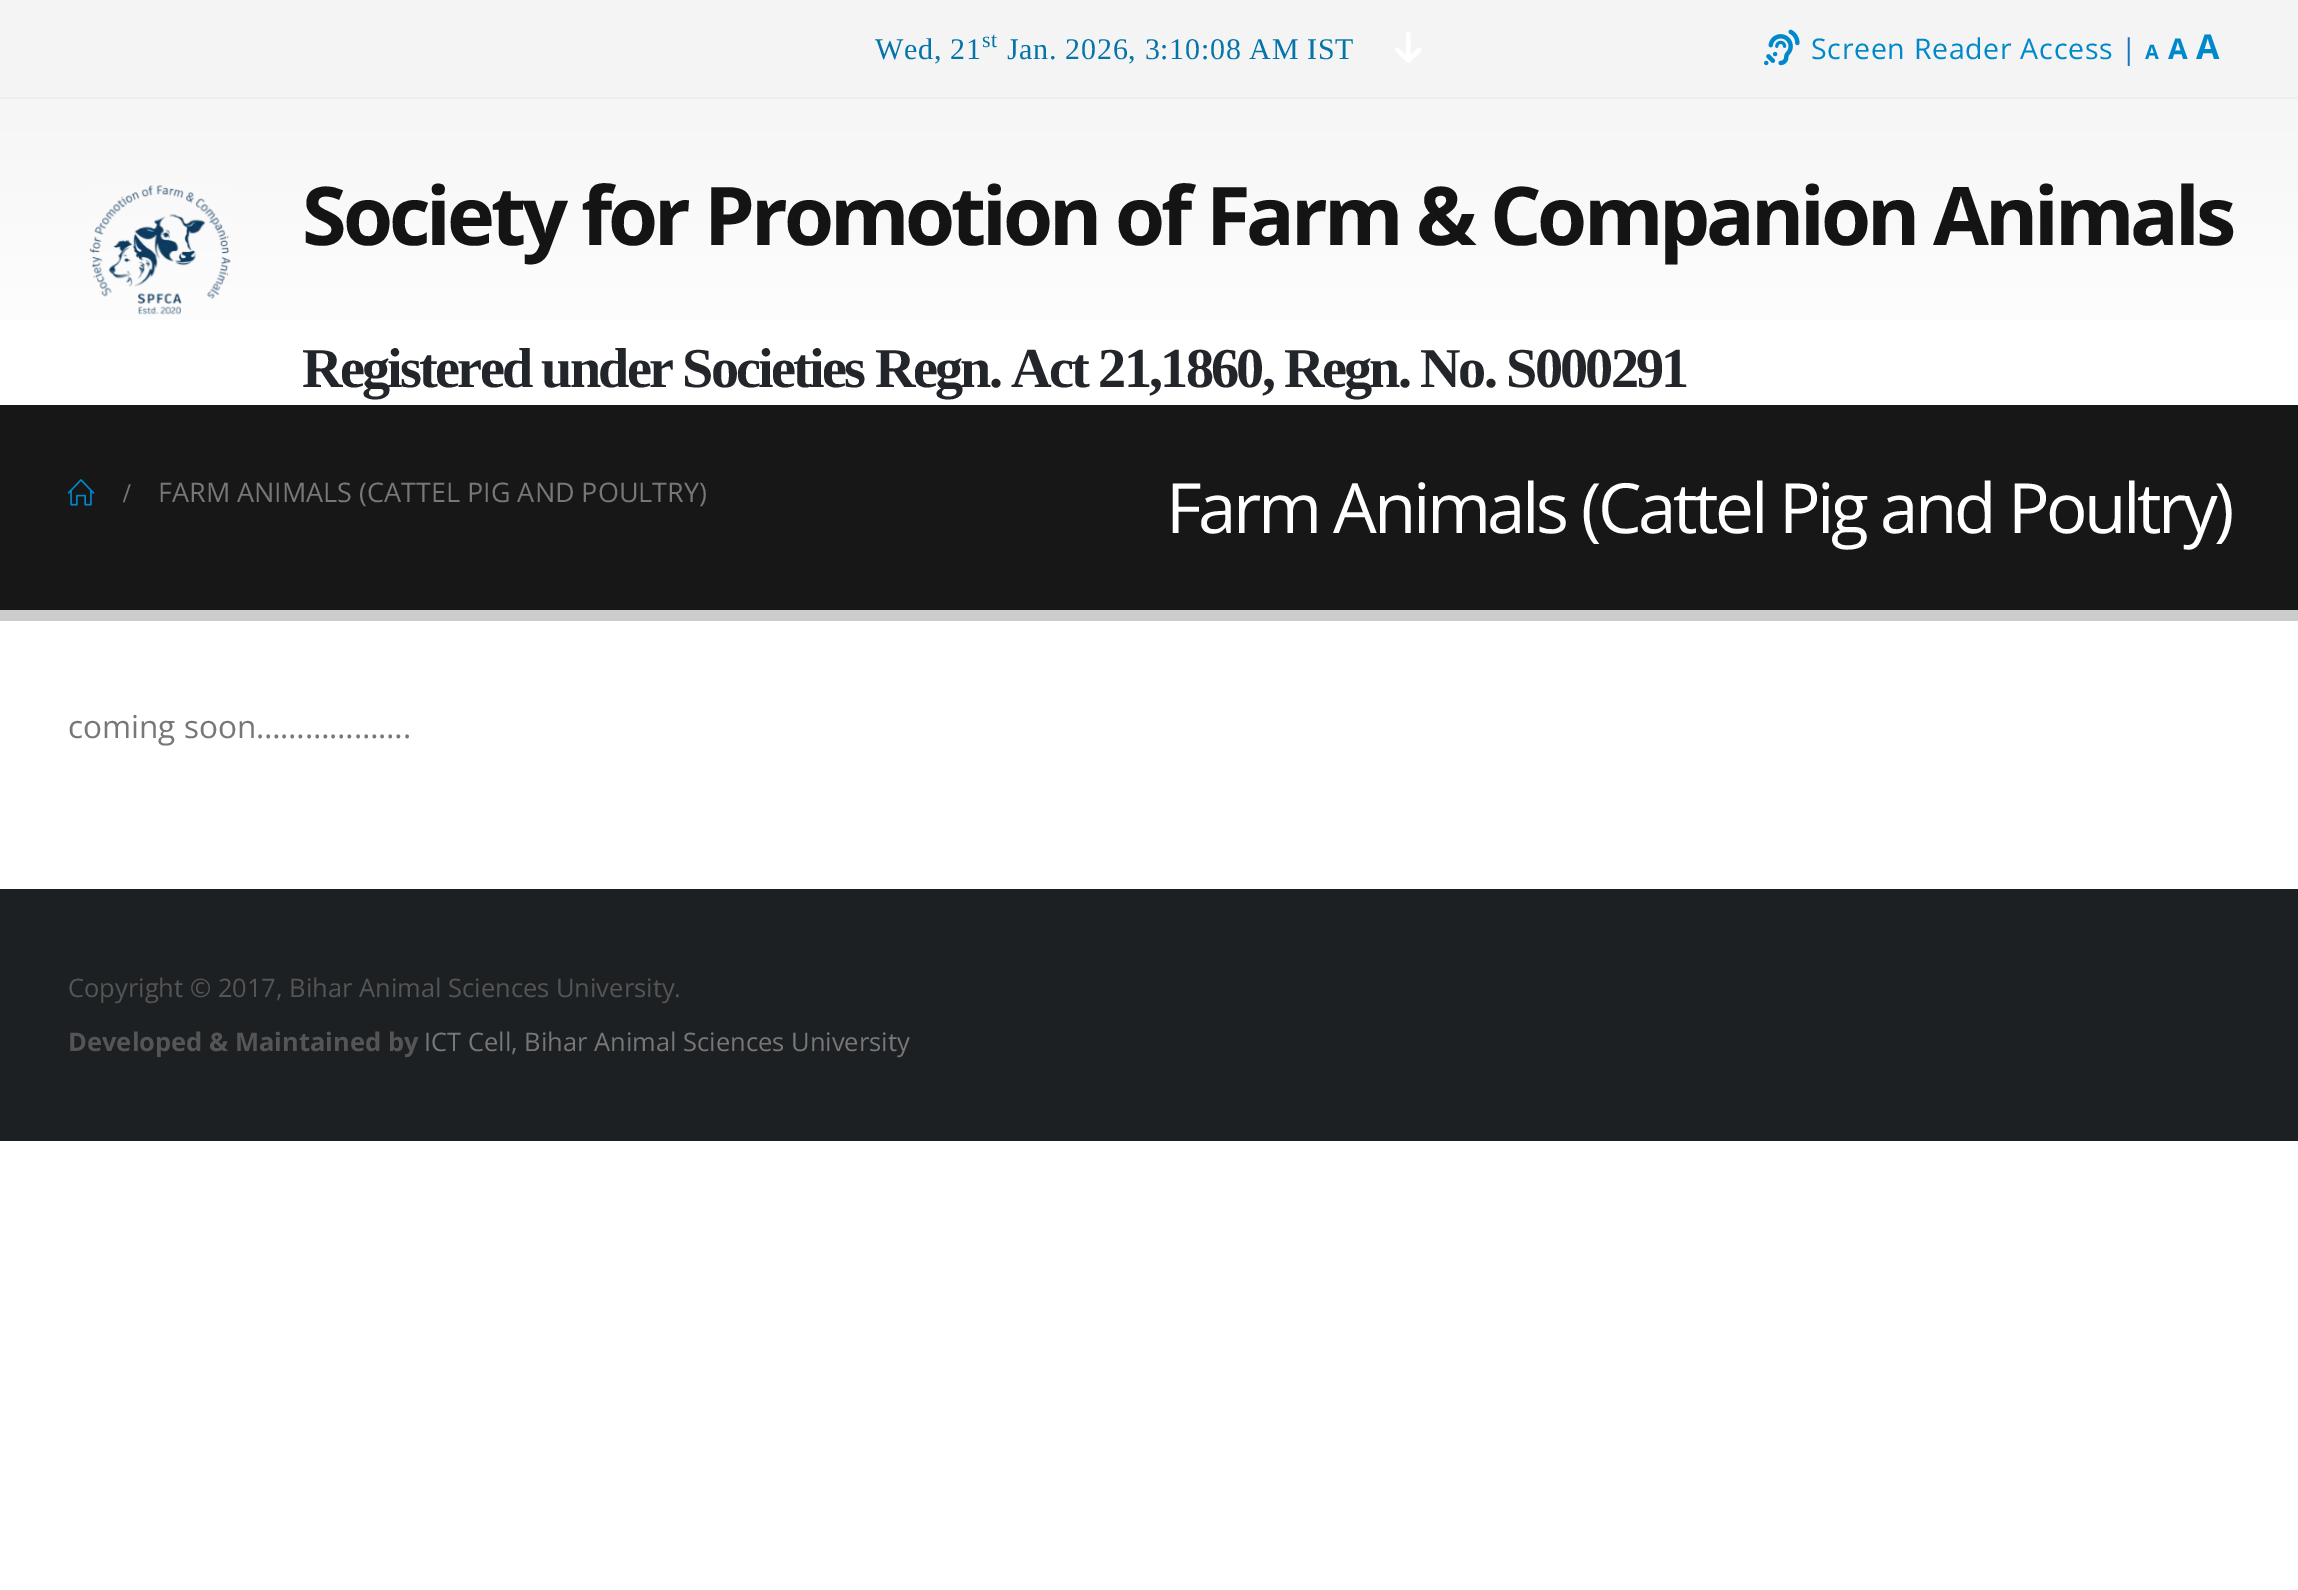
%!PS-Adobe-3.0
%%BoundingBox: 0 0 2298 1590
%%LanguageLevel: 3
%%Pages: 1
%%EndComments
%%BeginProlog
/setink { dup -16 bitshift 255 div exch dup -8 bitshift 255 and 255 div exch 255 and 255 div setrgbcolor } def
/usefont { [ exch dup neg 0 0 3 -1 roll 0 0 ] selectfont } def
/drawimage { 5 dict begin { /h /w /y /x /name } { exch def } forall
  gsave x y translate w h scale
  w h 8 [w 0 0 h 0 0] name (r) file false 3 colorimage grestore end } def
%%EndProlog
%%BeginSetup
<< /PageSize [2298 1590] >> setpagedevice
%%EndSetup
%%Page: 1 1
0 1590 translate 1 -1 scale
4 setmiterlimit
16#FFFFFF setink
0 0 2298 1590 rectfill
16#F4F4F4 setink
0 0 2298 97 rectfill
16#EDEDED setink
0 97 2298 2 rectfill
/LiberationSerif-Regular 30 usefont
16#0574A9 setink
875 59 moveto 0.7 0 (Wed, 21) ashow
/LiberationSerif-Regular 22 usefont
982 47 moveto 0.7 0 (st) ashow
/LiberationSerif-Regular 30 usefont
1007 59 moveto 0.7 0 (Jan. 2026, 3:10:08 AM IST) ashow
(img1.raw) 1395 32 27 31 drawimage
(img2.raw) 1764 29 36 37 drawimage
/OpenSans-Regular 28.5 usefont
16#0088CC setink
1811 59 moveto 0.7 0 (Screen Reader Access) ashow
16#1E73BE setink
2121 59 moveto 0.7 0 (|) ashow
/OpenSans-Bold 20 usefont
16#0088CC setink
2145 59 moveto 0.7 0 (A) ashow
/OpenSans-Bold 28.5 usefont
2168 59 moveto 0.7 0 (A) ashow
/OpenSans-Bold 34 usefont
2196 59 moveto 0.7 0 (A) ashow
gsave 0 99 moveto 2298 99 lineto 2298 320 lineto 0 320 lineto closepath clip newpath
<< /ShadingType 2 /ColorSpace /DeviceRGB /Coords [1150 99 1150 405] /Extend [true true] /Function << /FunctionType 2 /Domain [0 1] /C0 [0.965 0.965 0.965] /C1 [1 1 1] /N 1 >> >> shfill grestore
(img3.raw) 90 185 141 130 drawimage
/OpenSans-Bold 81 usefont
16#141414 setink
302 245 moveto -4.05 0 (Society for Promotion of Farm & Companion Animals) ashow
/LiberationSerif-Bold 56.25 usefont
16#222529 setink
302 387 moveto -2.8 0 (Registered under Societies Regn. Act 21,1860, Regn. No. S000291) ashow
16#171717 setink
0 405 2298 205 rectfill
16#CCCCCC setink
0 610 2298 11 rectfill
(img4.raw) 67 479 28 27 drawimage
/LiberationSerif-Bold 27 usefont
16#777777 setink
123 502 moveto (/) show
/OpenSans-Regular 27 usefont
158 502 moveto (FARM ANIMALS \(CATTEL PIG AND POULTRY\)) show
/OpenSans-Regular 69.25 usefont
16#FFFFFF setink
1166 533 moveto -3.45 0 (Farm Animals \(Cattel Pig and Poultry\)) ashow
/OpenSans-Regular 31.5 usefont
16#777777 setink
68 738 moveto (coming soon……………….) show
16#1C2023 setink
0 889 2298 252 rectfill
/OpenSans-Regular 25.5 usefont
16#555555 setink
68 997 moveto (Copyright © 2017, Bihar Animal Sciences University.) show
/OpenSans-Bold 25.5 usefont
68 1051 moveto (Developed & Maintained by) show
/OpenSans-Regular 25.5 usefont
16#777777 setink
424 1051 moveto (ICT Cell, Bihar Animal Sciences University) show
showpage
%%EOF
